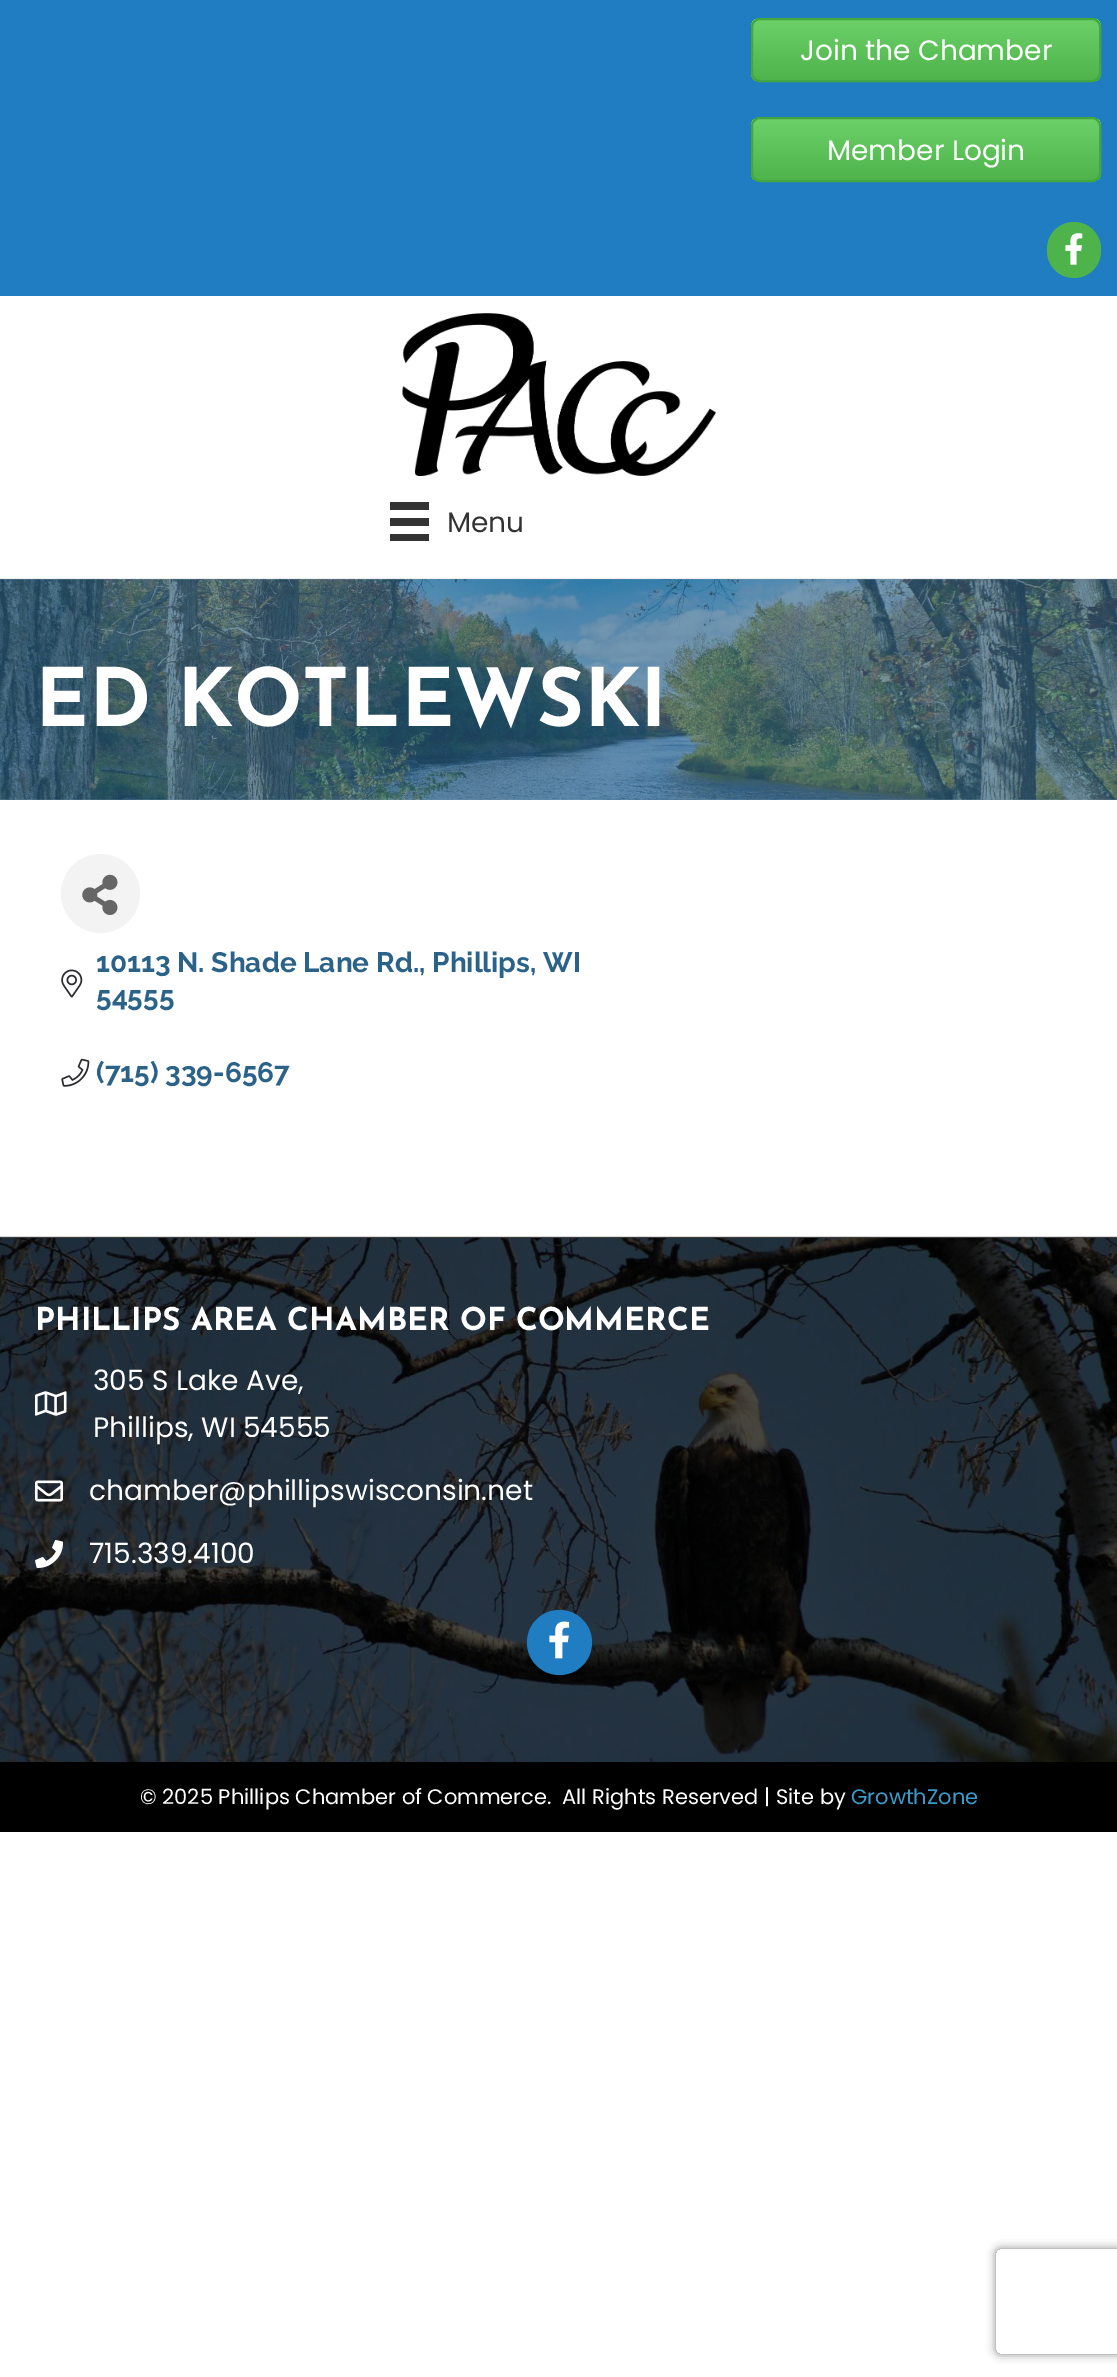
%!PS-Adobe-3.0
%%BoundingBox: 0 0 1117 2377
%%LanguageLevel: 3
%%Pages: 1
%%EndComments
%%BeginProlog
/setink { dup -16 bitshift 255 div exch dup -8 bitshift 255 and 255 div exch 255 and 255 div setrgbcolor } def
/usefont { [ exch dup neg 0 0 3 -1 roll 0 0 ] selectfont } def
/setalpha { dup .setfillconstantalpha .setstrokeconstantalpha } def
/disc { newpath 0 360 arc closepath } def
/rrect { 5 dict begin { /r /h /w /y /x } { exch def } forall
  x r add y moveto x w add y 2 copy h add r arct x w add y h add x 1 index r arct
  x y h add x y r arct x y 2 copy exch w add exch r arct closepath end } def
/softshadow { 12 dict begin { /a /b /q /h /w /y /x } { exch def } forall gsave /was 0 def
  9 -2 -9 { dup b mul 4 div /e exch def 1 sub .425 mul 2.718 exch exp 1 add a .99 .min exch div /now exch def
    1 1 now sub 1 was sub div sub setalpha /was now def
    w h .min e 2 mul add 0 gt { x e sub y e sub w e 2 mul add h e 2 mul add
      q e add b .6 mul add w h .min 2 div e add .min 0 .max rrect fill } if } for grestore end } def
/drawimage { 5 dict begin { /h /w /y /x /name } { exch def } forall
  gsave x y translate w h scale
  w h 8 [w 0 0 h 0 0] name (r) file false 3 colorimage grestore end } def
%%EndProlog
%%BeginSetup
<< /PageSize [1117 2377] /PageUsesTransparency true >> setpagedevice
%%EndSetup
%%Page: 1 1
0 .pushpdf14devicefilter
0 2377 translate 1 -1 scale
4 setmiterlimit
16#FFFFFF setink
0 0 1117 2377 rectfill
16#217DC2 setink
0 0 1117 296 rectfill
gsave
751 18 350 64 9 rrect clip newpath
gsave 751 19 moveto 1101 19 lineto 1101 81 lineto 751 81 lineto closepath clip newpath
<< /ShadingType 2 /ColorSpace /DeviceRGB /Coords [926 19 926 81] /Extend [true true] /Function << /FunctionType 2 /Domain [0 1] /C0 [0.424 0.82 0.408] /C1 [0.306 0.702 0.29] /N 1 >> >> shfill grestore
grestore
16#42A73E setink
2 setlinewidth
752 19 348 62 8 rrect stroke
/Poppins-Regular 28 usefont
16#FFFFFF setink
800 60 moveto (Join the Chamber) show
gsave
751 117 350 65 9 rrect clip newpath
gsave 751 119 moveto 1101 119 lineto 1101 180 lineto 751 180 lineto closepath clip newpath
<< /ShadingType 2 /ColorSpace /DeviceRGB /Coords [926 119 926 180] /Extend [true true] /Function << /FunctionType 2 /Domain [0 1] /C0 [0.424 0.82 0.408] /C1 [0.306 0.702 0.29] /N 1 >> >> shfill grestore
grestore
16#42A73E setink
752 118 348 63 8 rrect stroke
16#FFFFFF setink
827 160 moveto (Member Login) show
16#4EB34A setink
1047 222 54 56 27 rrect fill
(img1.raw) 1065 233 18 32 drawimage
16#EFEFEF setink
0 578 1117 1 rectfill
(img2.raw) 402 313 314 163 drawimage
[
    [390 502 39 8 16#333333]
    [390 518 39 8 16#333333]
    [390 534 39 7 16#333333]
] { aload pop setink rectfill } forall
447 532 moveto (Menu) show
(img3.raw) 0 579 1117 221 drawimage
/JosefinSans-Thin 80.5 usefont
16#FFFFFF setink
35 726 moveto (ED KOTLEWSKI) show
16#F3F3F3 setink
100.5 893.5 39.5 disc fill
(img4.raw) 82 874 36 41 drawimage
/Raleway-Thin 28 usefont
16#2A6288 setink
96 972 moveto (10113 N. Shade Lane Rd., Phillips, WI) show
(img5.raw) 61 969 22 29 drawimage
96 1006 moveto (54555) show
(img6.raw) 61 1058 29 29 drawimage
96 1082 moveto (\(715\) 339-6567) show
(img7.raw) 0 1238 1117 524 drawimage
16#DADADA setink
0 1236 1117 1 rectfill
16#3D3D3D setink
0 1237 1117 1 rectfill
/JosefinSans-Thin 31.5 usefont
16#FFFFFF setink
35 1330 moveto (PHILLIPS AREA CHAMBER OF COMMERCE) show
(img8.raw) 35 1391 32 25 drawimage
/Poppins-Regular 28 usefont
93 1390 moveto (305 S Lake Ave,) show
93 1437 moveto (Phillips, WI 54555) show
(img9.raw) 35 1480 28 22 drawimage
89 1500 moveto (chamber@phillipswisconsin.net) show
(img10.raw) 35 1540 29 28 drawimage
89 1563 moveto (715.339.4100) show
16#217DC2 setink
559.5 1642.5 32.5 disc fill
(img11.raw) 549 1621 21 38 drawimage
16#000000 setink
0 1762 1117 70 rectfill
/Poppins-Regular 21 usefont
16#FFFFFF setink
140 1804 moveto (© 2025 Phillips Chamber of Commerce.) show
562 1804 moveto (All Rights Reserved | Site by) show
16#3C9ACB setink
851 1804 moveto (GrowthZone) show
gsave
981 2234 moveto 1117 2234 lineto 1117 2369 lineto 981 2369 lineto closepath 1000 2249 moveto 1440 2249 lineto 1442 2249 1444 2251 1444 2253 curveto 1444 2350 lineto 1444 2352 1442 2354 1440 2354 curveto 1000 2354 lineto 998 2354 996 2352 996 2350 curveto 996 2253 lineto 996 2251 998 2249 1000 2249 curveto closepath eoclip newpath
16#808080 setink
996 2249 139 105 4 4.5 1 softshadow
grestore
.poppdf14devicefilter showpage
%%EOF
